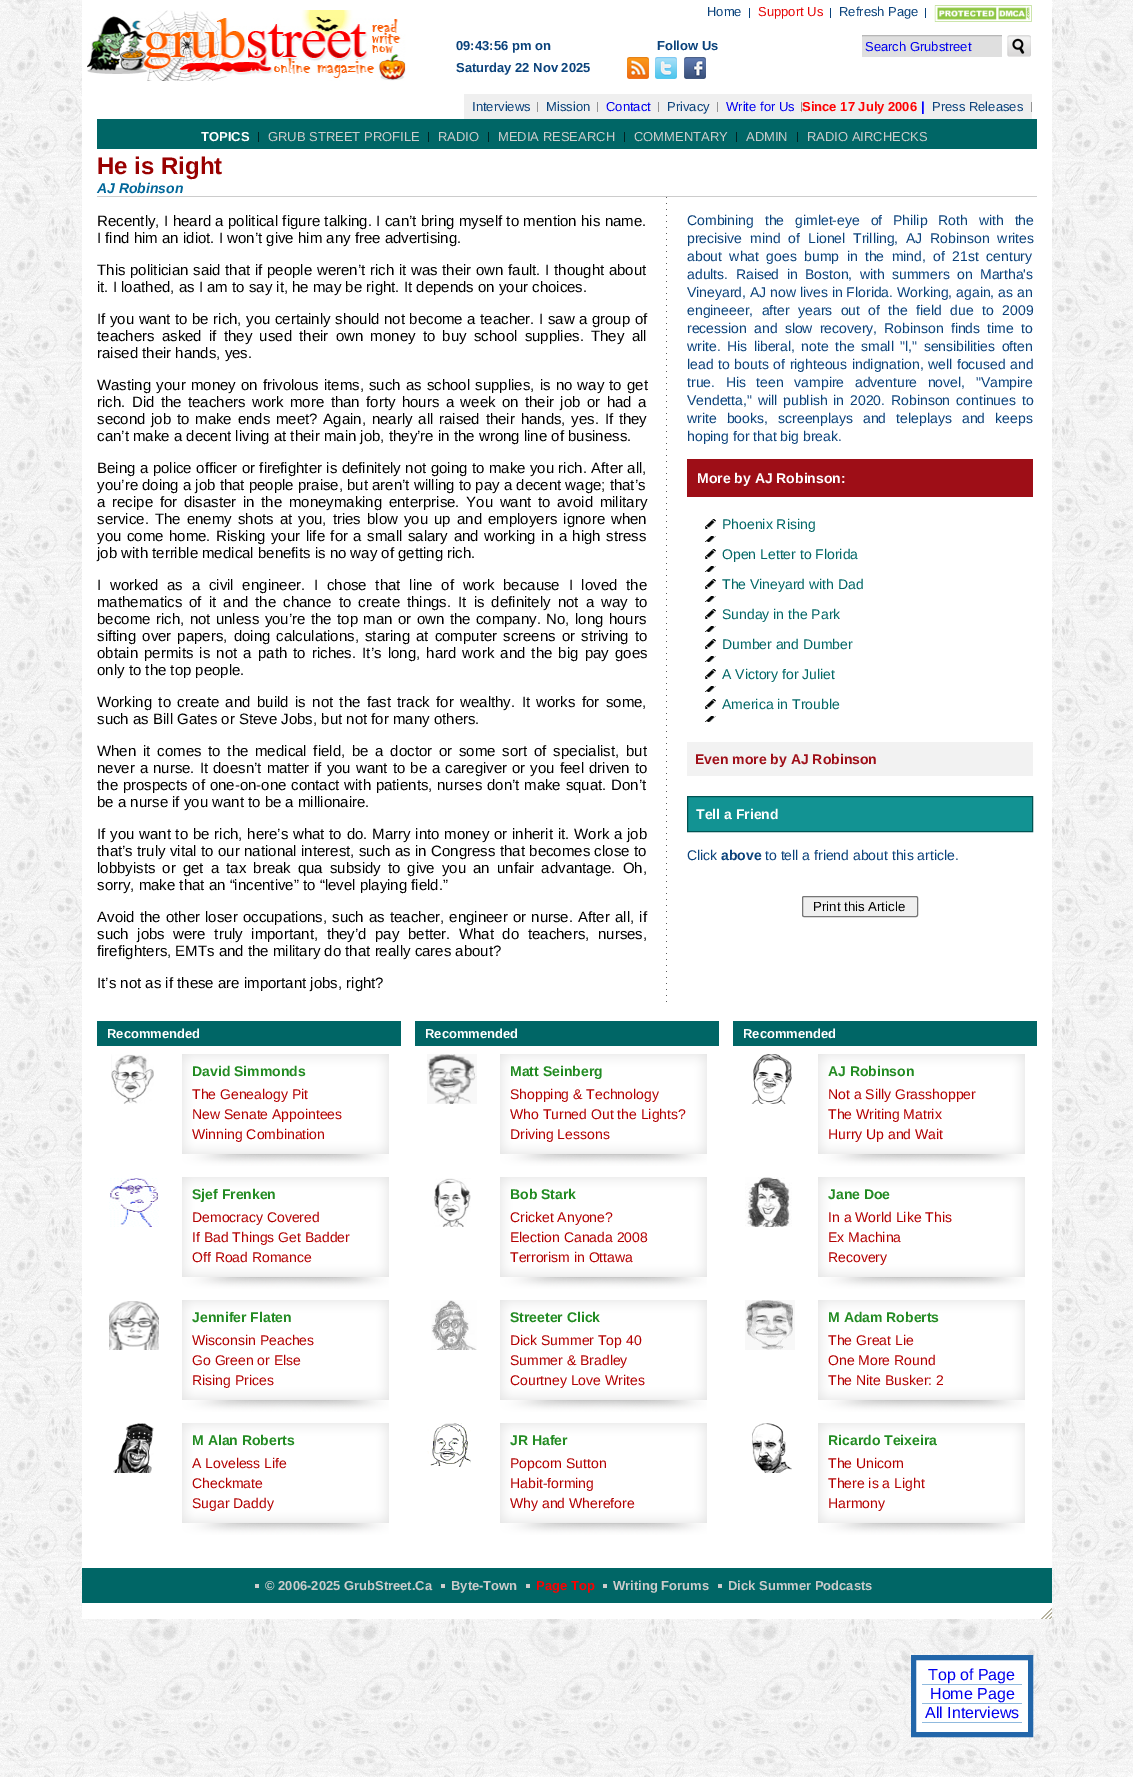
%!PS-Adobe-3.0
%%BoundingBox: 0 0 1133 1777
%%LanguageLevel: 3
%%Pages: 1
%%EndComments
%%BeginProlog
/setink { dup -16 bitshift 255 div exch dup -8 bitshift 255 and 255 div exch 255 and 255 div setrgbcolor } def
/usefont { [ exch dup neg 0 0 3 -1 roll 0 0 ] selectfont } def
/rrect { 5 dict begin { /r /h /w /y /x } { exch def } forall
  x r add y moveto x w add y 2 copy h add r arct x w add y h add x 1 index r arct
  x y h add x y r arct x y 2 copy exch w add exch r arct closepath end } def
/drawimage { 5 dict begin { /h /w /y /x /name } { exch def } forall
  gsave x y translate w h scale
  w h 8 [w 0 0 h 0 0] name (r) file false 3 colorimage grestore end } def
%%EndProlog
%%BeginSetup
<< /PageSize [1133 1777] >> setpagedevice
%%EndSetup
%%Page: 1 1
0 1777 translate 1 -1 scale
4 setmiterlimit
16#FFFFFF setink
0 0 1133 1777 rectfill
(img1.raw) 0 0 1133 1777 drawimage
82 0 970 1619 rectfill
(img2.raw) 87 10 319 71 drawimage
/LiberationSans-Regular 13 usefont
16#0A427B setink
707 16 moveto (Home) show
749 8 1 10 rectfill
16#E60707 setink
758 16 moveto (Support Us) show
16#0A427B setink
830 8 1 10 rectfill
839 16 moveto (Refresh Page) show
925 8 1 10 rectfill
(img3.raw) 934 5 98 17 drawimage
/LiberationSans-Bold 13 usefont
[
    [(09:43:56 pm on) 456 50]
    [(Saturday 22 Nov 2025) 456 72]
    [(Follow Us) 657 50]
] { aload pop moveto show } forall
(img4.raw) 627 57 22 22 drawimage
(img5.raw) 655 57 22 22 drawimage
(img6.raw) 684 57 22 22 drawimage
(img7.raw) 862 35 140 22 drawimage
/LiberationSans-Regular 13 usefont
16#0000EE setink
865 51 moveto (Search Grubstreet) show
(img8.raw) 1007 35 24 22 drawimage
16#EFEFEF setink
464 94 568 25 rectfill
16#939393 setink
537 102 1 10 rectfill
16#0A427B setink
472 111 moveto (Interviews) show
16#939393 setink
597 102 1 10 rectfill
16#0A427B setink
546 111 moveto (Mission) show
16#939393 setink
658 102 1 10 rectfill
16#0000EE setink
606 111 moveto (Contact) show
16#939393 setink
717 102 1 10 rectfill
16#0A427B setink
667 111 moveto (Privacy) show
16#939393 setink
801 102 1 10 rectfill
16#0000EE setink
726 111 moveto (Write for Us) show
/LiberationSans-Bold 13 usefont
16#FF0000 setink
802 111 moveto (Since 17 July 2006) show
16#0000FF setink
921 111 moveto (|) show
16#939393 setink
1031 102 1 10 rectfill
/LiberationSans-Regular 13 usefont
16#0A427B setink
932 111 moveto (Press Releases) show
16#006666 setink
97 119 940 30 rectfill
/LiberationSans-Bold 13 usefont
16#FFFFFF setink
201 141 moveto (TOPICS) show
/LiberationSans-Regular 13 usefont
16#CCCCCC setink
268 141 moveto (GRUB STREET PROFILE) show
16#012222 setink
258 132 1 10 rectfill
16#CCCCCC setink
438 141 moveto (RADIO) show
16#012222 setink
428 132 1 10 rectfill
16#CCCCCC setink
498 141 moveto (MEDIA RESEARCH) show
16#012222 setink
488 132 1 10 rectfill
16#CCCCCC setink
634 141 moveto (COMMENTARY) show
16#012222 setink
624 132 1 10 rectfill
16#CCCCCC setink
746 141 moveto (ADMIN) show
16#012222 setink
736 132 1 10 rectfill
16#CCCCCC setink
807 141 moveto (RADIO AIRCHECKS) show
16#012222 setink
797 132 1 10 rectfill
16#CCCCCC setink
97 196 940 1 rectfill
/LiberationSans-Bold 24 usefont
16#990000 setink
97 174 moveto (He is Right) show
/LiberationSans-BoldItalic 14 usefont
16#006699 setink
97 193 moveto (AJ Robinson) show
(img9.raw) 666 197 1 805 drawimage
/LiberationSans-Regular 15 usefont
16#000000 setink
97 226 moveto 0.25 0 32 (Recently, I heard a political figure talking. I can’t bring myself to mention his name.) widthshow
97 243 moveto (I find him an idiot. I won’t give him any free advertising.) show
97 275 moveto 0.5 0 32 (This politician said that if people weren’t rich it was their own fault. I thought about) widthshow
97 292 moveto (it. I loathed, as I am to say it, he may be right. It depends on your choices.) show
97 324 moveto 0.4 0 32 (If you want to be rich, you certainly should not become a teacher. I saw a group of) widthshow
97 341 moveto 3.1 0 32 (teachers asked if they used their own money to buy school supplies. They all) widthshow
97 358 moveto (raised their hands, yes.) show
97 390 moveto 1 0 32 (Wasting your money on frivolous items, such as school supplies, is no way to get) widthshow
97 407 moveto 2.25 0 32 (rich. Did the teachers work more than forty hours a week on their job or had a) widthshow
97 424 moveto 1.6 0 32 (second job to make ends meet? Again, nearly all raised their hands, yes. If they) widthshow
97 441 moveto (can’t make a decent living at their main job, they’re in the wrong line of business.) show
97 473 moveto 0.3 0 32 (Being a police officer or firefighter is definitely not going to make you rich. After all,) widthshow
97 490 moveto (you’re doing a job that people praise, but aren’t willing to pay a decent wage; that’s) show
97 507 moveto 2.5 0 32 (a recipe for disaster in the moneymaking enterprise. You want to avoid military) widthshow
97 524 moveto 1.9 0 32 (service. The enemy shots at you, tries blow you up and employers ignore when) widthshow
97 541 moveto 1.4 0 32 (you come home. Risking your life for a small salary and working in a high stress) widthshow
97 558 moveto (job with terrible medical benefits is no way of getting rich.) show
97 590 moveto 4.6 0 32 (I worked as a civil engineer. I chose that line of work because I loved the) widthshow
97 607 moveto 2.9 0 32 (mathematics of it and the chance to create things. It is definitely not a way to) widthshow
97 624 moveto 1.25 0 32 (become rich, not unless you’re the top man or own the company. No, long hours) widthshow
97 641 moveto 1.9 0 32 (sifting over papers, doing calculations, staring at computer screens or striving to) widthshow
97 658 moveto 2 0 32 (obtain permits is not a path to riches. It’s long, hard work and the big pay goes) widthshow
97 675 moveto (only to the top people.) show
97 707 moveto 2.25 0 32 (Working to create and build is not the fast track for wealthy. It works for some,) widthshow
97 724 moveto (such as Bill Gates or Steve Jobs, but not for many others.) show
97 756 moveto 2.6 0 32 (When it comes to the medical field, be a doctor or some sort of specialist, but) widthshow
97 773 moveto 0.9 0 32 (never a nurse. It doesn’t matter if you want to be a caregiver or you feel driven to) widthshow
97 790 moveto 0.6 0 32 (the prospects of one-on-one contact with patients, nurses don’t make squat. Don’t) widthshow
97 807 moveto (be a nurse if you want to be a millionaire.) show
97 839 moveto 0.6 0 32 (If you want to be rich, here’s what to do. Marry into money or inherit it. Work a job) widthshow
97 856 moveto 0.25 0 32 (that’s truly vital to our national interest, such as in Congress that becomes close to) widthshow
97 873 moveto 2.9 0 32 (lobbyists or get a tax break qua subsidy to give you an unfair advantage. Oh,) widthshow
97 890 moveto (sorry, make that an “incentive” to “level playing field.”) show
97 922 moveto 1 0 32 (Avoid the other loser occupations, such as teacher, engineer or nurse. After all, if) widthshow
97 939 moveto 4.4 0 32 (such jobs were truly important, they’d pay better. What do teachers, nurses,) widthshow
97 956 moveto (firefighters, EMTs and the military do that really cares about?) show
97 988 moveto (It’s not as if these are important jobs, right?) show
/LiberationSans-Regular 14 usefont
16#0A427B setink
687 225 moveto 7 0 32 (Combining the gimlet-eye of Philip Roth with the) widthshow
687 243 moveto 4 0 32 (precisive mind of Lionel Trilling, AJ Robinson writes) widthshow
687 261 moveto 3.5 0 32 (about what goes bump in the mind, of 21st century) widthshow
687 279 moveto 3.5 0 32 (adults. Raised in Boston, with summers on Martha's) widthshow
687 297 moveto (Vineyard, AJ now lives in Florida. Working, again, as an) show
687 315 moveto 4.5 0 32 (engineeer, after years out of the field due to 2009) widthshow
687 333 moveto 3.25 0 32 (recession and slow recovery, Robinson finds time to) widthshow
687 351 moveto 2.6 0 32 (write. His liberal, note the small "l," sensibilities often) widthshow
687 369 moveto 0.75 0 32 (lead to bouts of righteous indignation, well focused and) widthshow
687 387 moveto 6.75 0 32 (true. His teen vampire adventure novel, "Vampire) widthshow
687 405 moveto 2 0 32 (Vendetta," will publish in 2020. Robinson continues to) widthshow
687 423 moveto 6.25 0 32 (write books, screenplays and teleplays and keeps) widthshow
687 441 moveto (hoping for that big break.) show
16#9E0E17 setink
687 459 346 38 rectfill
/LiberationSans-Bold 14 usefont
16#FFFFFF setink
697 483 moveto (More by AJ Robinson:) show
(img10.raw) 705 519 11 10 drawimage
/LiberationSans-Regular 14 usefont
16#006666 setink
722 529 moveto (Phoenix Rising) show
(img11.raw) 705 536 11 6 drawimage
(img10.raw) 705 549 11 10 drawimage
722 559 moveto (Open Letter to Florida) show
(img11.raw) 705 566 11 6 drawimage
(img10.raw) 705 579 11 10 drawimage
722 589 moveto (The Vineyard with Dad) show
(img11.raw) 705 596 11 6 drawimage
(img10.raw) 705 609 11 10 drawimage
722 619 moveto (Sunday in the Park) show
(img11.raw) 705 626 11 6 drawimage
(img10.raw) 705 639 11 10 drawimage
722 649 moveto (Dumber and Dumber) show
(img11.raw) 705 656 11 6 drawimage
(img10.raw) 705 669 11 10 drawimage
722 679 moveto (A Victory for Juliet) show
(img11.raw) 705 686 11 6 drawimage
(img10.raw) 705 699 11 10 drawimage
722 709 moveto (America in Trouble) show
(img11.raw) 705 716 11 6 drawimage
16#F2F2F2 setink
687 742 346 34 rectfill
/LiberationSans-Bold 14 usefont
16#9E0E17 setink
695 764 moveto (Even more by AJ Robinson) show
16#129393 setink
687.5 796.5 moveto 1032.5 796.5 lineto 1032.5 831.5 lineto 687.5 831.5 lineto closepath gsave fill grestore
16#005353 setink
stroke
16#FFFFFF setink
696 819 moveto (Tell a Friend) show
/LiberationSans-Regular 14 usefont
16#0A427B setink
687 860 moveto (Click) show
/LiberationSans-Bold 14 usefont
721 860 moveto (above) show
/LiberationSans-Regular 14 usefont
765 860 moveto (to tell a friend about this article.) show
16#EFEFEF setink
802.5 896.5 115 20 1.5 rrect gsave fill grestore
16#767676 setink
stroke
/LiberationSans-Regular 13.25 usefont
16#000000 setink
813 911 moveto (Print this Article) show
16#FFFFFF setink
913.5 1657.5 moveto 1030.5 1657.5 lineto 1030.5 1734.5 lineto 913.5 1734.5 lineto closepath gsave fill grestore
16#2266AA setink
5 setlinewidth
stroke
16#90BADE setink
922 1684 100 1 rectfill
/LiberationSans-Regular 16 usefont
16#0000EE setink
928 1680 moveto (Top of Page) show
16#90BADE setink
922 1703 100 1 rectfill
16#0000EE setink
930 1699 moveto (Home Page) show
16#90BADE setink
922 1722 100 1 rectfill
16#0000EE setink
925 1718 moveto (All Interviews) show
16#006666 setink
97 1021 304 25 rectfill
/LiberationSans-Bold 13 usefont
16#FFFFFF setink
107 1038 moveto (Recommended) show
(img12.raw) 111 1054 43 50 drawimage
(img13.raw) 182 1054 207 112 drawimage
/LiberationSans-Bold 14 usefont
16#228B22 setink
192 1076 moveto (David Simmonds) show
/LiberationSans-Regular 14 usefont
16#B30000 setink
[
    [(The Genealogy Pit) 192 1099]
    [(New Senate Appointees) 192 1119]
    [(Winning Combination) 192 1139]
] { aload pop moveto show } forall
(img14.raw) 109 1178 50 49 drawimage
(img13.raw) 182 1177 207 112 drawimage
/LiberationSans-Bold 14 usefont
16#228B22 setink
192 1199 moveto (Sjef Frenken) show
/LiberationSans-Regular 14 usefont
16#B30000 setink
[
    [(Democracy Covered) 192 1222]
    [(If Bad Things Get Badder) 192 1242]
    [(Off Road Romance) 192 1262]
] { aload pop moveto show } forall
(img15.raw) 109 1301 50 49 drawimage
(img13.raw) 182 1300 207 112 drawimage
/LiberationSans-Bold 14 usefont
16#228B22 setink
192 1322 moveto (Jennifer Flaten) show
/LiberationSans-Regular 14 usefont
16#B30000 setink
[
    [(Wisconsin Peaches) 192 1345]
    [(Go Green or Else) 192 1365]
    [(Rising Prices) 192 1385]
] { aload pop moveto show } forall
(img16.raw) 113 1423 41 50 drawimage
(img13.raw) 182 1423 207 112 drawimage
/LiberationSans-Bold 14 usefont
16#228B22 setink
192 1445 moveto (M Alan Roberts) show
/LiberationSans-Regular 14 usefont
16#B30000 setink
[
    [(A Loveless Life) 192 1468]
    [(Checkmate) 192 1488]
    [(Sugar Daddy) 192 1508]
] { aload pop moveto show } forall
16#006666 setink
415 1021 304 25 rectfill
/LiberationSans-Bold 13 usefont
16#FFFFFF setink
425 1038 moveto (Recommended) show
(img17.raw) 427 1054 50 50 drawimage
(img13.raw) 500 1054 207 112 drawimage
/LiberationSans-Bold 14 usefont
16#228B22 setink
510 1076 moveto (Matt Seinberg) show
/LiberationSans-Regular 14 usefont
16#B30000 setink
[
    [(Shopping & Technology) 510 1099]
    [(Who Turned Out the Lights?) 510 1119]
    [(Driving Lessons) 510 1139]
] { aload pop moveto show } forall
(img18.raw) 434 1178 37 49 drawimage
(img13.raw) 500 1177 207 112 drawimage
/LiberationSans-Bold 14 usefont
16#228B22 setink
510 1199 moveto (Bob Stark) show
/LiberationSans-Regular 14 usefont
16#B30000 setink
[
    [(Cricket Anyone?) 510 1222]
    [(Election Canada 2008) 510 1242]
    [(Terrorism in Ottawa) 510 1262]
] { aload pop moveto show } forall
(img19.raw) 431 1300 46 50 drawimage
(img13.raw) 500 1300 207 112 drawimage
/LiberationSans-Bold 14 usefont
16#228B22 setink
510 1322 moveto (Streeter Click) show
/LiberationSans-Regular 14 usefont
16#B30000 setink
[
    [(Dick Summer Top 40) 510 1345]
    [(Summer & Bradley) 510 1365]
    [(Courtney Love Writes) 510 1385]
] { aload pop moveto show } forall
(img20.raw) 427 1423 44 44 drawimage
(img13.raw) 500 1423 207 112 drawimage
/LiberationSans-Bold 14 usefont
16#228B22 setink
510 1445 moveto (JR Hafer) show
/LiberationSans-Regular 14 usefont
16#B30000 setink
[
    [(Popcorn Sutton) 510 1468]
    [(Habit-forming) 510 1488]
    [(Why and Wherefore) 510 1508]
] { aload pop moveto show } forall
16#006666 setink
733 1021 304 25 rectfill
/LiberationSans-Bold 13 usefont
16#FFFFFF setink
743 1038 moveto (Recommended) show
(img21.raw) 751 1054 41 50 drawimage
(img13.raw) 818 1054 207 112 drawimage
/LiberationSans-Bold 14 usefont
16#228B22 setink
828 1076 moveto (AJ Robinson) show
/LiberationSans-Regular 14 usefont
16#B30000 setink
[
    [(Not a Silly Grasshopper) 828 1099]
    [(The Writing Matrix) 828 1119]
    [(Hurry Up and Wait) 828 1139]
] { aload pop moveto show } forall
(img22.raw) 745 1177 47 50 drawimage
(img13.raw) 818 1177 207 112 drawimage
/LiberationSans-Bold 14 usefont
16#228B22 setink
828 1199 moveto (Jane Doe) show
/LiberationSans-Regular 14 usefont
16#B30000 setink
[
    [(In a World Like This) 828 1222]
    [(Ex Machina) 828 1242]
    [(Recovery) 828 1262]
] { aload pop moveto show } forall
(img23.raw) 745 1300 50 50 drawimage
(img13.raw) 818 1300 207 112 drawimage
/LiberationSans-Bold 14 usefont
16#228B22 setink
828 1322 moveto (M Adam Roberts) show
/LiberationSans-Regular 14 usefont
16#B30000 setink
[
    [(The Great Lie) 828 1345]
    [(One More Round) 828 1365]
    [(The Nite Busker: 2) 828 1385]
] { aload pop moveto show } forall
(img24.raw) 752 1423 40 50 drawimage
(img13.raw) 818 1423 207 112 drawimage
/LiberationSans-Bold 14 usefont
16#228B22 setink
828 1445 moveto (Ricardo Teixeira) show
/LiberationSans-Regular 14 usefont
16#B30000 setink
[
    [(The Unicorn) 828 1468]
    [(There is a Light) 828 1488]
    [(Harmony) 828 1508]
] { aload pop moveto show } forall
16#006666 setink
82 1568 970 35 rectfill
/LiberationSans-Bold 13 usefont
16#CCCCCC setink
265 1590 moveto (© 2006-2025 GrubStreet.Ca) show
255 1584 4 4 rectfill
451 1590 moveto (Byte-Town) show
441 1584 4 4 rectfill
16#FF0000 setink
536 1590 moveto (Page Top) show
16#CCCCCC setink
526 1584 4 4 rectfill
613 1590 moveto (Writing Forums) show
603 1584 4 4 rectfill
728 1590 moveto (Dick Summer Podcasts) show
718 1584 4 4 rectfill
(img25.raw) 1041 1608 11 11 drawimage
showpage
%%EOF
